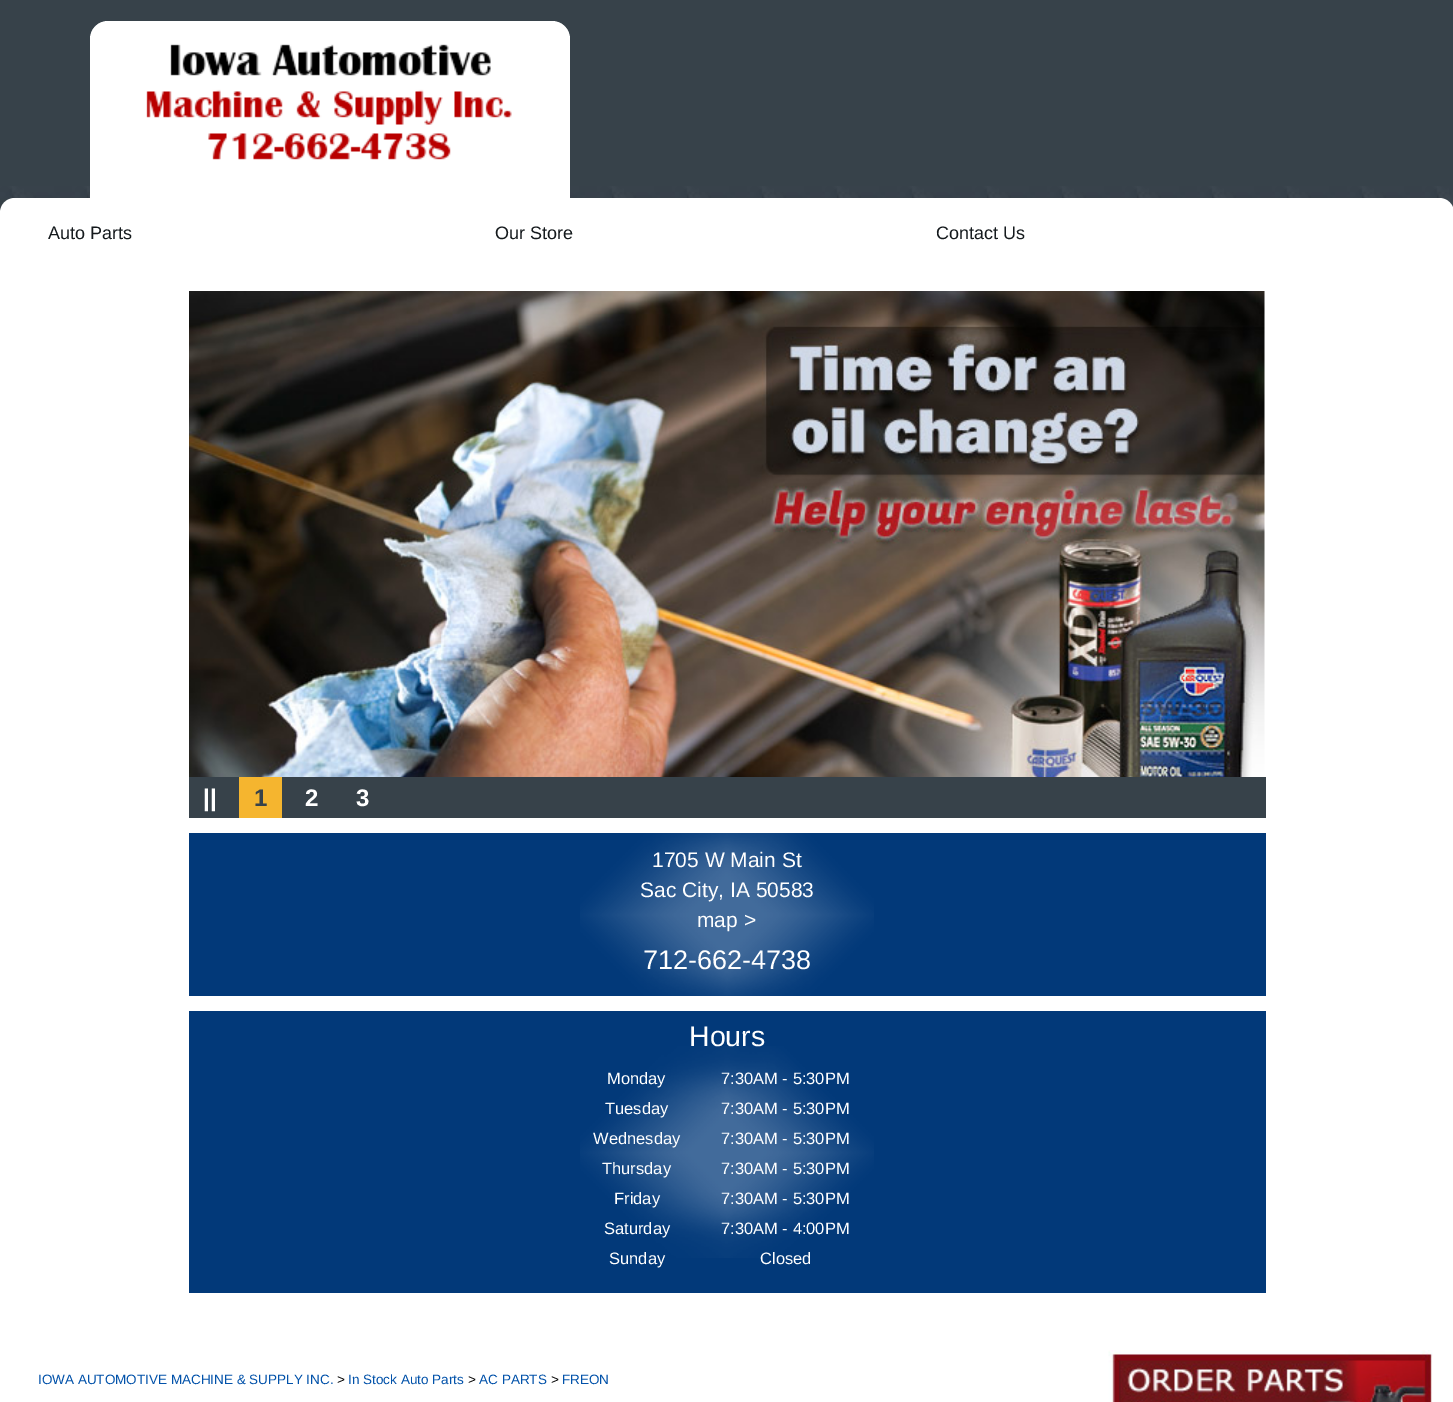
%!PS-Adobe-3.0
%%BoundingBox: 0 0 1453 1402
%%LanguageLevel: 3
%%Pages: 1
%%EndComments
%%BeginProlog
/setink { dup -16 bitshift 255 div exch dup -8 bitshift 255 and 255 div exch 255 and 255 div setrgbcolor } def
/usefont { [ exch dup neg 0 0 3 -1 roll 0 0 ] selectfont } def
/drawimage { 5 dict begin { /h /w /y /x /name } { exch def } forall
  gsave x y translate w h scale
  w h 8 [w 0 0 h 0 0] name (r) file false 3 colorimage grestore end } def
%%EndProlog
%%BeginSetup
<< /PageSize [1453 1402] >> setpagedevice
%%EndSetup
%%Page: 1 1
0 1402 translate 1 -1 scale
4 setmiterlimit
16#37424A setink
0 0 1453 1402 rectfill
(img1.raw) 0 186 1453 27 drawimage
16#FFFFFF setink
108 21 moveto 552 21 lineto 562 21 570 29 570 39 curveto 570 198 lineto 90 198 lineto 90 39 lineto 90 29 98 21 108 21 curveto closepath fill
(img2.raw) 105 21 450 139 drawimage
15 198 moveto 1439 198 lineto 1447.5 198 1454 204.5 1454 213 curveto 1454 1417 lineto 0 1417 lineto 0 213 lineto 0 204.5 6.5 198 15 198 curveto closepath fill
/LiberationSans-Regular 18 usefont
16#151A1D setink
[
    [(Auto Parts) 48 239]
    [(Our Store) 495 239]
    [(Contact Us) 936 239]
] { aload pop moveto show } forall
(img3.raw) 189 291 1076 486 drawimage
16#37424A setink
189 777 1077 41 rectfill
/LiberationSans-Bold 24 usefont
16#FFFFFF setink
203 806 moveto (||) show
16#F5B52F setink
239 777 43 41 rectfill
16#37424A setink
254 806 moveto (1) show
16#FFFFFF setink
305 806 moveto (2) show
356 806 moveto (3) show
16#023979 setink
189 833 1077 163 rectfill
(img4.raw) 580 833 294 163 drawimage
/LiberationSans-Regular 21 usefont
16#FFFFFF setink
[
    [(1705 W Main St) 652 867]
    [(Sac City, IA 50583) 640 897]
    [(map >) 697 927]
] { aload pop moveto show } forall
/LiberationSans-Regular 27 usefont
643 969 moveto (712-662-4738) show
16#023979 setink
189 1011 1077 282 rectfill
(img5.raw) 580 1046 294 212 drawimage
/LiberationSans-Regular 28.5 usefont
16#FFFFFF setink
689 1046 moveto (Hours) show
/LiberationSans-Regular 16.5 usefont
[
    [(Monday) 607 1084]
    [(Tuesday) 605 1114]
    [(Wednesday) 593 1144]
    [(Thursday) 602 1174]
    [(Friday) 614 1204]
    [(Saturday) 604 1234]
    [(Sunday) 609 1264]
    [(7:30AM - 5:30PM) 721 1084]
    [(7:30AM - 5:30PM) 721 1114]
    [(7:30AM - 5:30PM) 721 1144]
    [(7:30AM - 5:30PM) 721 1174]
    [(7:30AM - 5:30PM) 721 1204]
    [(7:30AM - 4:00PM) 721 1234]
    [(Closed) 760 1264]
] { aload pop moveto show } forall
/LiberationSans-Regular 13.5 usefont
16#0252AA setink
38 1384 moveto (IOWA AUTOMOTIVE MACHINE & SUPPLY INC.) show
16#000000 setink
337 1384 moveto (>) show
16#0252AA setink
348 1384 moveto (In Stock Auto Parts) show
16#000000 setink
468 1384 moveto (>) show
16#0252AA setink
479 1384 moveto (AC PARTS) show
16#000000 setink
551 1384 moveto (>) show
16#0252AA setink
562 1384 moveto (FREON) show
(img6.raw) 1108 1350 325 52 drawimage
showpage
%%EOF
